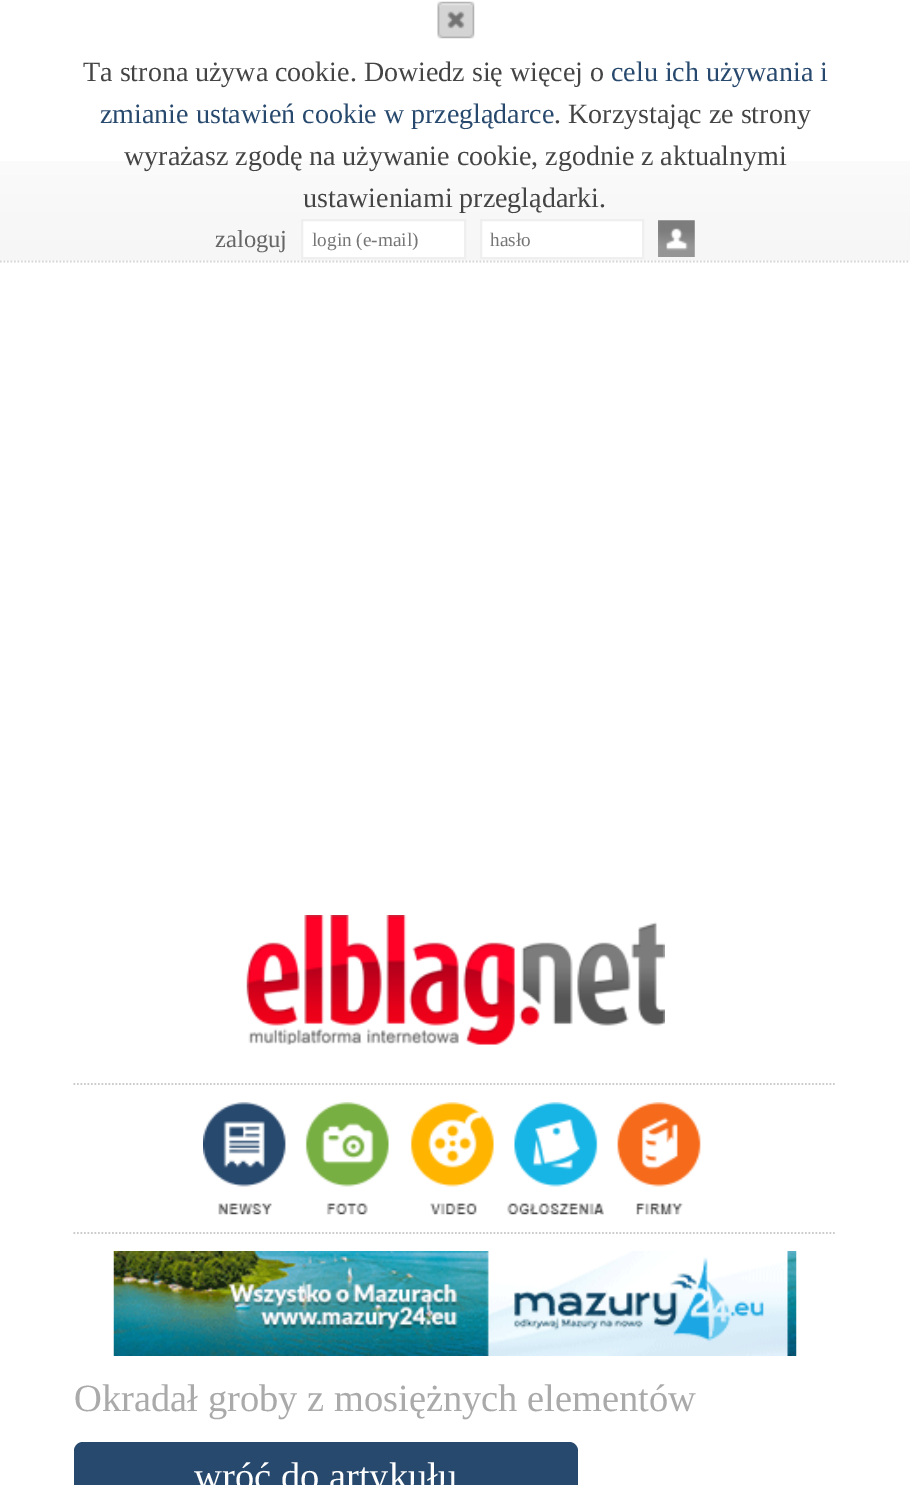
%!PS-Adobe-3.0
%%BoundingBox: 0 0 910 1485
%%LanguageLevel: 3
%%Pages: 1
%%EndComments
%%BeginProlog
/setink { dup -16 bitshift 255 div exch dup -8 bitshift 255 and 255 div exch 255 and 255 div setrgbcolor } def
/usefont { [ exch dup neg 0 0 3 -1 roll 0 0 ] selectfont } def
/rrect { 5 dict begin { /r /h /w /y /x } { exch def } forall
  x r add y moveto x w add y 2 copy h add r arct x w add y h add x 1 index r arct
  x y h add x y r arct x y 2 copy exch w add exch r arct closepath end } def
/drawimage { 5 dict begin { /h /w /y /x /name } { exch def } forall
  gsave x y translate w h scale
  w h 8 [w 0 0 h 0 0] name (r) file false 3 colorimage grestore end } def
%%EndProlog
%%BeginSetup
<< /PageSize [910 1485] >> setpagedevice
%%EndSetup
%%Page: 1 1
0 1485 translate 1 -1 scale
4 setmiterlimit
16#FFFFFF setink
0 0 910 1485 rectfill
(img1.raw) 0 161 910 100 drawimage
16#D7D7D7 setink
1.8 setlinewidth
[1.75 1.75] 0 setdash
0 261.5 moveto 910 261.5 lineto stroke
(img2.raw) 437 1 38 38 drawimage
/LiberationSerif-Regular 28 usefont
16#444444 setink
83 81 moveto (Ta strona używa cookie. Dowiedz się więcej o) show
16#28496E setink
611 81 moveto (celu ich używania i) show
100 123 moveto (zmianie ustawień cookie w przeglądarce) show
16#444444 setink
[
    [(. Korzystając ze strony) 554 123]
    [(wyrażasz zgodę na używanie cookie, zgodnie z aktualnymi) 124 165]
    [(ustawieniami przeglądarki.) 303 207]
] { aload pop moveto show } forall
/LiberationSerif-Regular 24.5 usefont
16#666666 setink
215 247 moveto (zaloguj) show
16#FFFFFF setink
302 220 moveto 465 220 lineto 465 258 lineto 302 258 lineto closepath gsave fill grestore
16#EFEFEF setink
2 setlinewidth
[] 0 setdash
stroke
/LiberationSerif-Regular 19.25 usefont
16#757575 setink
312 246 moveto (login \(e-mail\)) show
16#FFFFFF setink
481 220 moveto 643 220 lineto 643 258 lineto 481 258 lineto closepath gsave fill grestore
16#EFEFEF setink
stroke
16#757575 setink
490 246 moveto (hasło) show
(img3.raw) 658 220 37 37 drawimage
(img4.raw) 246 915 419 130 drawimage
16#CCCCCC setink
1.8 setlinewidth
[1.75 1.75] 0 setdash
73.5 1084 moveto 836.5 1084 lineto stroke
73.5 1233 moveto 836.5 1233 lineto stroke
(img5.raw) 203 1102 83 113 drawimage
(img6.raw) 305 1102 84 113 drawimage
(img7.raw) 410 1102 84 113 drawimage
(img8.raw) 507 1102 97 113 drawimage
(img9.raw) 603 1102 98 113 drawimage
(img10.raw) 113 1251 684 105 drawimage
/LiberationSerif-Regular 38.5 usefont
16#AAAAAA setink
74 1411 moveto (Okradał groby z mosiężnych elementów) show
16#28496E setink
74 1442 504 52 9 rrect fill
16#FFFFFF setink
194 1489 moveto (wróć do artykułu) show
showpage
%%EOF
